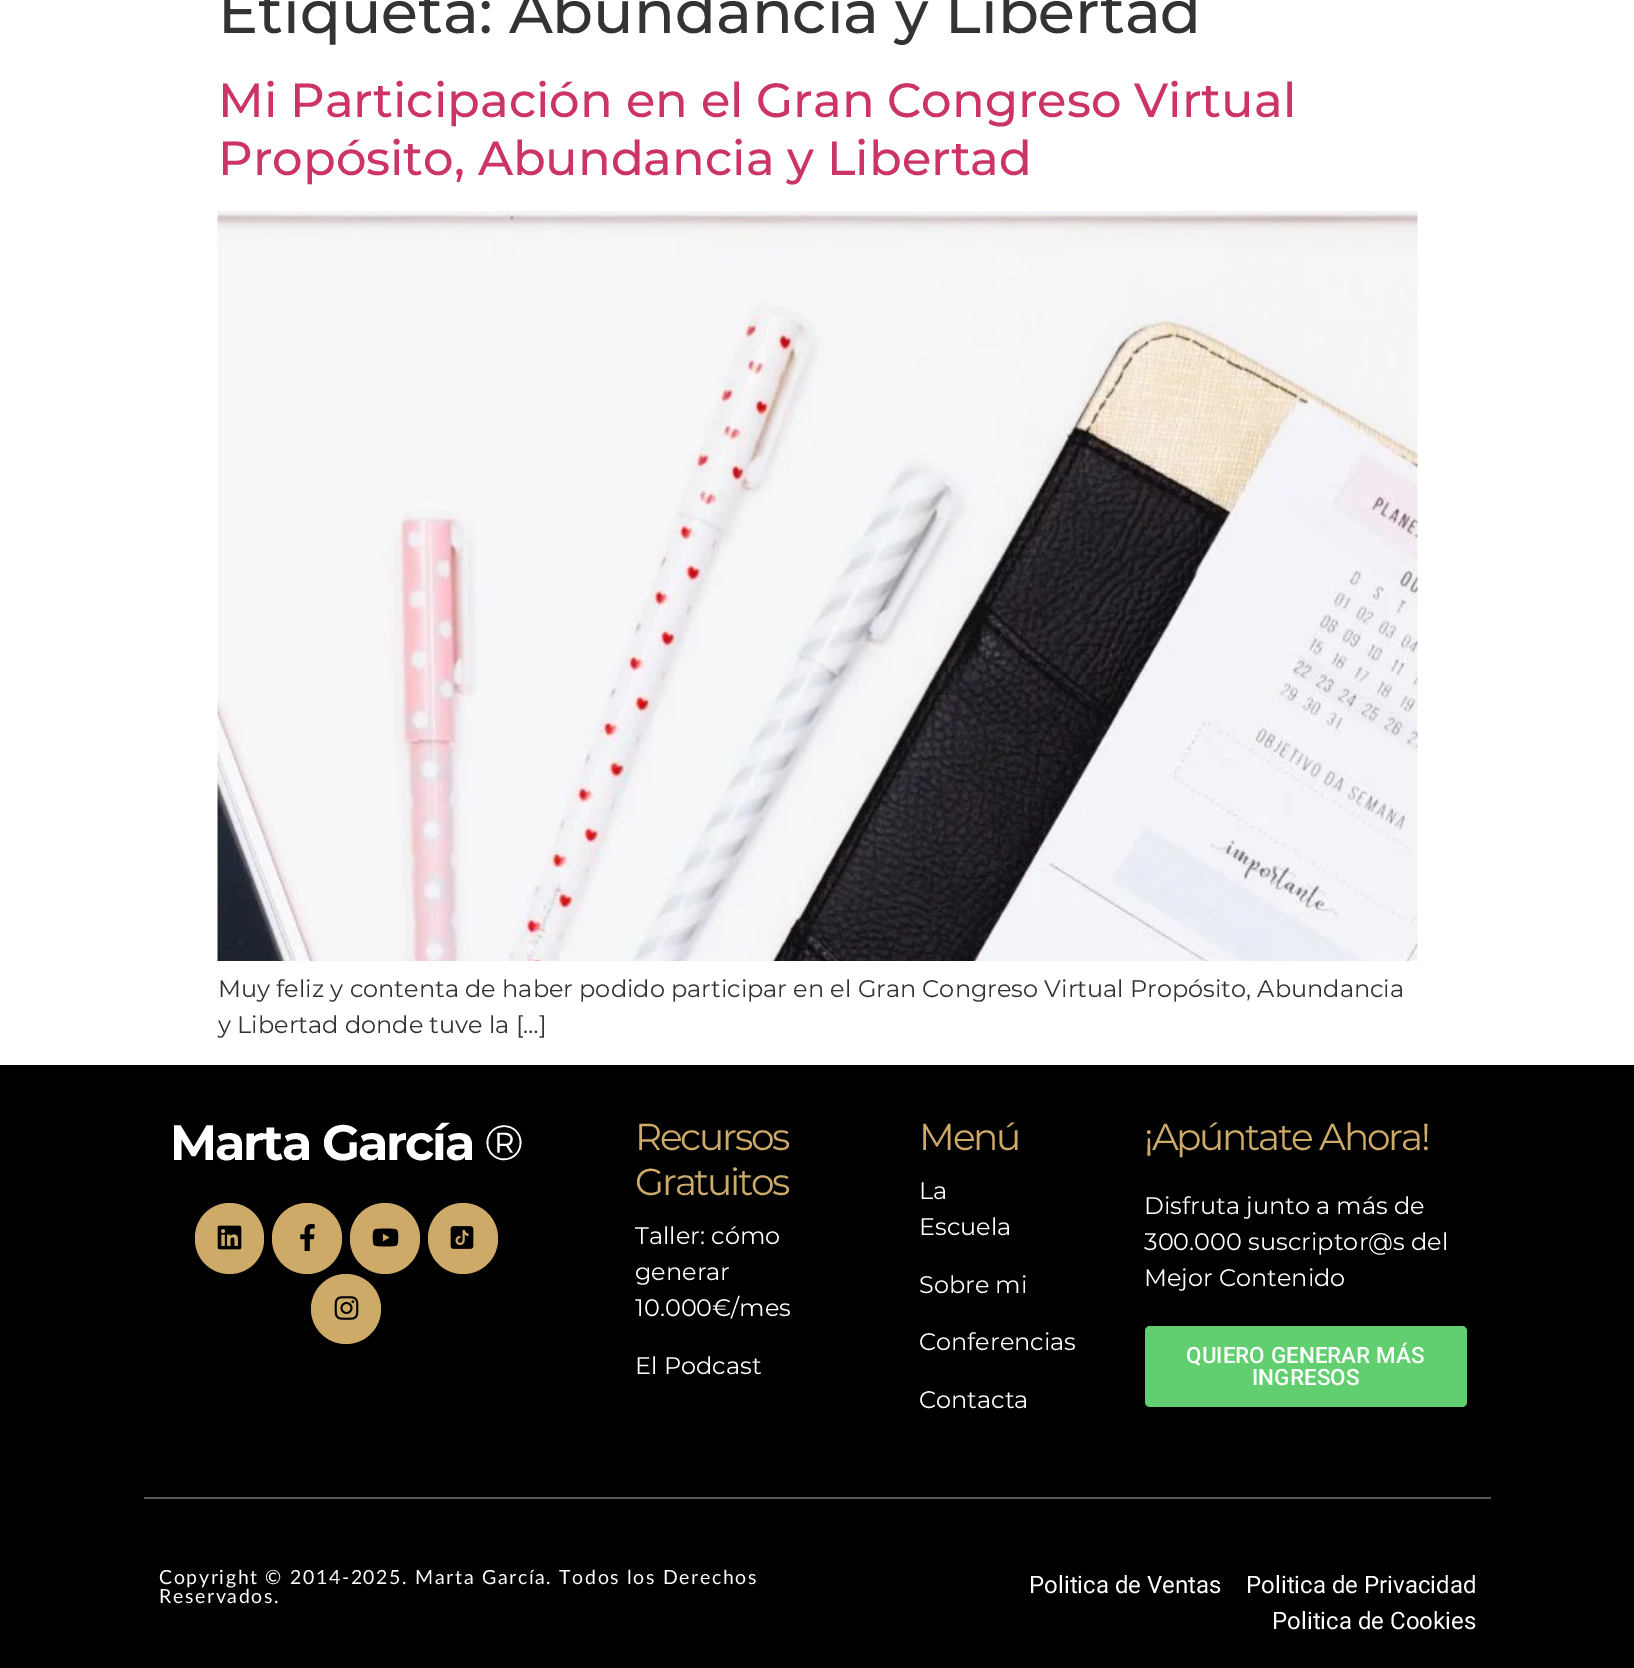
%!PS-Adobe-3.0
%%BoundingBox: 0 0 1634 1668
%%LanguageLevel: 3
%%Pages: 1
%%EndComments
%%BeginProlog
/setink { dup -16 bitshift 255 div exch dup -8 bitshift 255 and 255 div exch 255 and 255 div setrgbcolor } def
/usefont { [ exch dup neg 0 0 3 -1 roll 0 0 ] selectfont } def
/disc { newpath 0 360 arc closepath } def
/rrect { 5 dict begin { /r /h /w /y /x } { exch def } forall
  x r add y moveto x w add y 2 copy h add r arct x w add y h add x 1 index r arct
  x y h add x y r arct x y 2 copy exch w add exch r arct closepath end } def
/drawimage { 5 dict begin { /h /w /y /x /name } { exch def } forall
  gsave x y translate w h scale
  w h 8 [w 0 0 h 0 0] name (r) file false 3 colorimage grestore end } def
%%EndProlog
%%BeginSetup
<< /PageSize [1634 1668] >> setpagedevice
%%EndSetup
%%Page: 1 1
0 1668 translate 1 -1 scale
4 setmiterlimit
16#FFFFFF setink
0 0 1634 1668 rectfill
/Montserrat-Medium 60 usefont
16#333333 setink
218 33 moveto (Etiqueta: Abundancia y Libertad) show
/Montserrat-Medium 48 usefont
16#CC3366 setink
218 117 moveto (Mi Participación en el Gran Congreso Virtual) show
218 175 moveto (Propósito, Abundancia y Libertad) show
(img1.raw) 217 211 1201 750 drawimage
/Montserrat-Regular 24 usefont
16#333333 setink
218 997 moveto (Muy feliz y contenta de haber podido participar en el Gran Congreso Virtual Propósito, Abundancia) show
218 1033 moveto (y Libertad donde tuve la […]) show
16#000000 setink
0 1065 1634 603 rectfill
16#54595F setink
144 1497 1347 2 rectfill
/Montserrat-Bold 49.5 usefont
16#FFFFFF setink
170 1160 moveto -2.25 0 (Marta García) ashow
/Montserrat-Regular 49.5 usefont
484 1160 moveto -2.25 0 (®) ashow
16#CDAA68 setink
195 1203 69 71 34.5 rrect fill
(img2.raw) 217 1225 25 25 drawimage
272 1203 70 71 35 rrect fill
(img3.raw) 300 1224 15 27 drawimage
350 1203 70 71 35 rrect fill
(img4.raw) 372 1228 27 19 drawimage
428 1203 70 71 35 rrect fill
(img5.raw) 450 1226 24 23 drawimage
346 1309 35 disc fill
(img6.raw) 334 1296 25 24 drawimage
/Montserrat-Regular 37.5 usefont
635 1150 moveto -2.25 0 (Recursos) ashow
635 1195 moveto -2.25 0 (Gratuitos) ashow
/Montserrat-Regular 24 usefont
16#FFFFFF setink
[
    [(Taller: cómo) 635 1244]
    [(generar) 635 1280]
    [(10.000€/mes) 635 1316]
    [(El Podcast) 635 1374]
] { aload pop moveto show } forall
/Montserrat-Regular 37.5 usefont
16#CDAA68 setink
919 1150 moveto -2.25 0 (Menú) ashow
/Montserrat-Regular 24 usefont
16#FFFFFF setink
[
    [(La) 919 1199]
    [(Escuela) 919 1235]
    [(Sobre mi) 919 1293]
    [(Conferencias) 919 1350]
    [(Contacta) 919 1408]
] { aload pop moveto show } forall
/Montserrat-Regular 37.5 usefont
16#CDAA68 setink
1144 1150 moveto -2.25 0 (¡Apúntate Ahora!) ashow
/Montserrat-Regular 24 usefont
16#FFFFFF setink
[
    [(Disfruta junto a más de) 1144 1214]
    [(300.000 suscriptor@s del) 1144 1250]
    [(Mejor Contenido) 1144 1286]
] { aload pop moveto show } forall
16#61CE70 setink
1145 1326 322 81 5 rrect fill
/Roboto-Medium 22.5 usefont
16#FFFFFF setink
1186 1363 moveto (QUIERO GENERAR MÁS) show
1252 1385 moveto (INGRESOS) show
/Lato-Regular 19.5 usefont
159 1584 moveto 1.65 0 (Copyright © 2014-2025. Marta García. Todos los Derechos) ashow
159 1603 moveto 1.65 0 (Reservados.) ashow
/Roboto-Regular 24 usefont
[
    [(Politica de Ventas) 1029 1593]
    [(Politica de Privacidad) 1246 1593]
    [(Politica de Cookies) 1272 1629]
] { aload pop moveto show } forall
showpage
%%EOF
